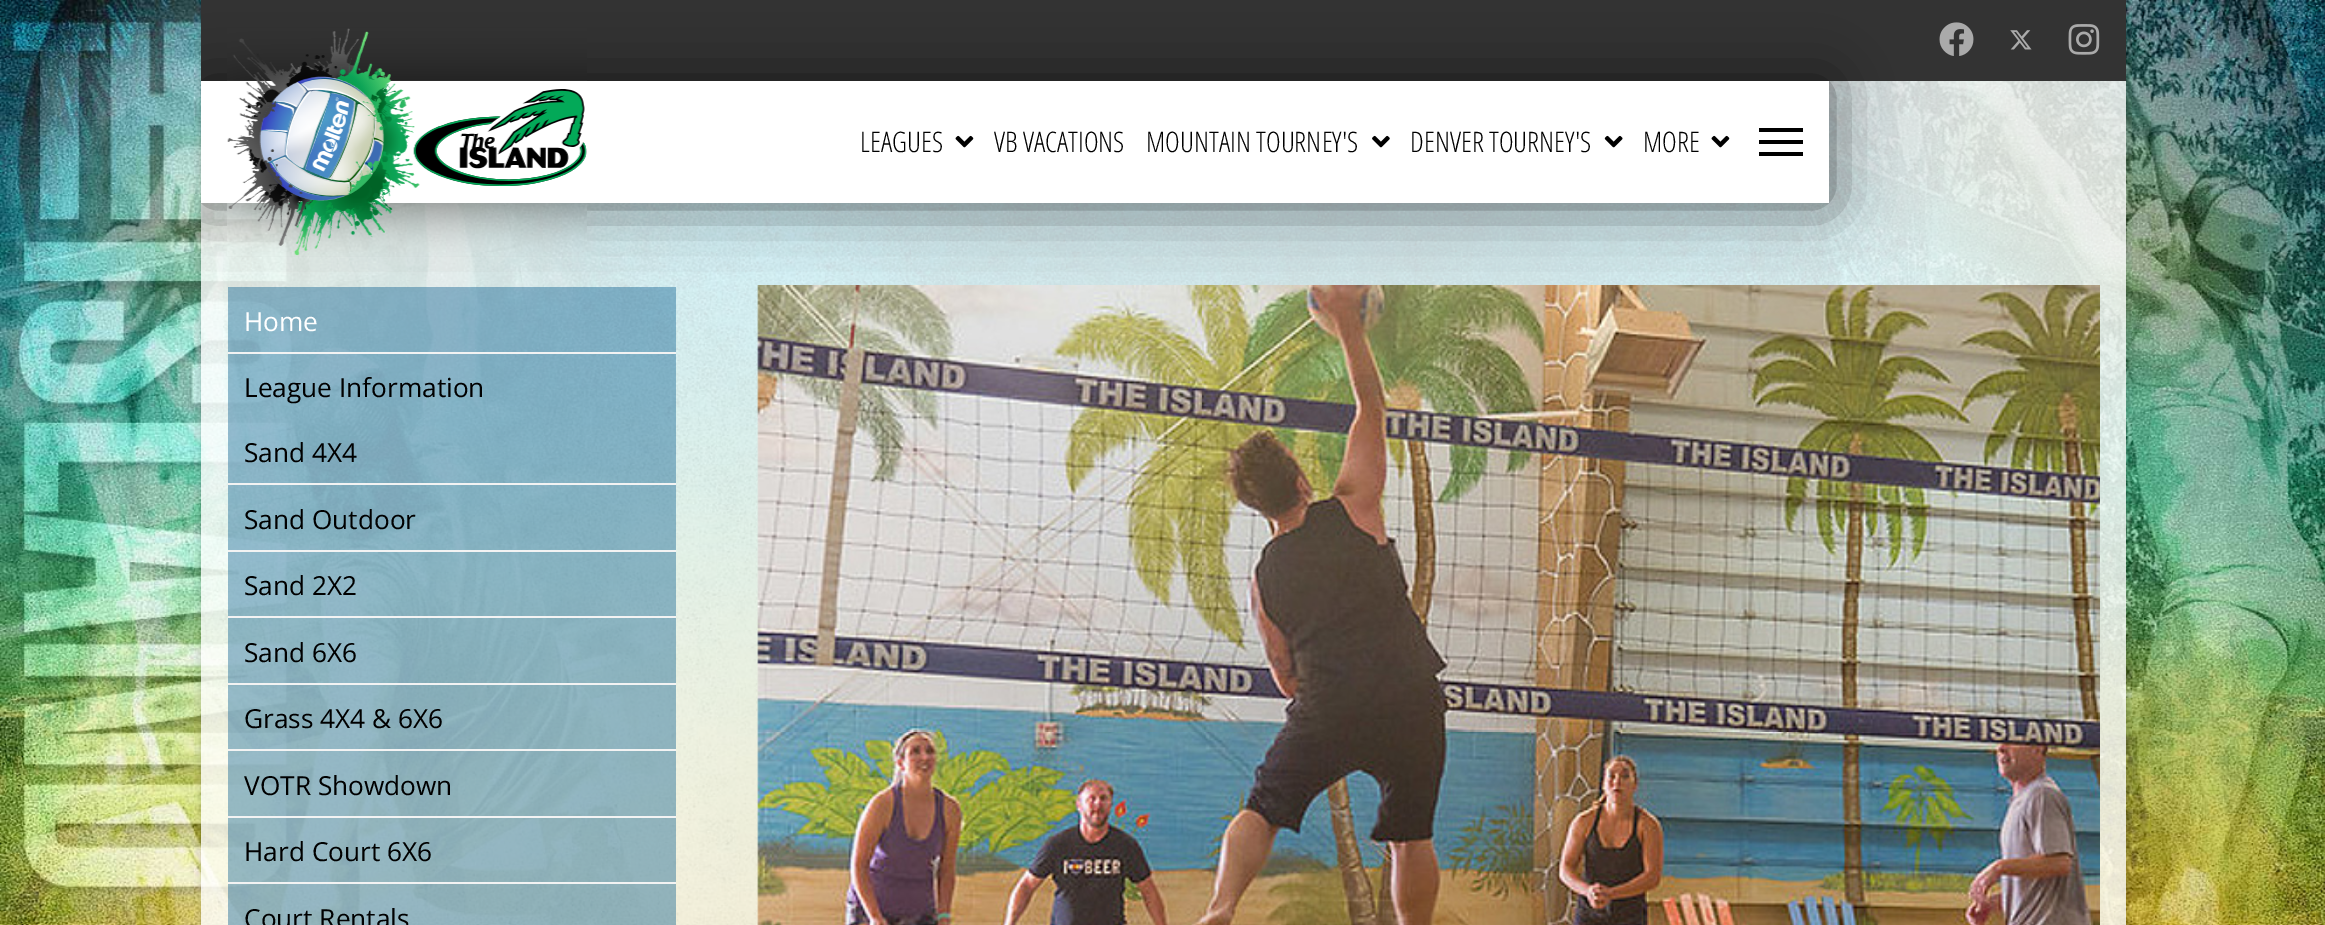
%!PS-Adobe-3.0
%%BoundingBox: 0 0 2325 925
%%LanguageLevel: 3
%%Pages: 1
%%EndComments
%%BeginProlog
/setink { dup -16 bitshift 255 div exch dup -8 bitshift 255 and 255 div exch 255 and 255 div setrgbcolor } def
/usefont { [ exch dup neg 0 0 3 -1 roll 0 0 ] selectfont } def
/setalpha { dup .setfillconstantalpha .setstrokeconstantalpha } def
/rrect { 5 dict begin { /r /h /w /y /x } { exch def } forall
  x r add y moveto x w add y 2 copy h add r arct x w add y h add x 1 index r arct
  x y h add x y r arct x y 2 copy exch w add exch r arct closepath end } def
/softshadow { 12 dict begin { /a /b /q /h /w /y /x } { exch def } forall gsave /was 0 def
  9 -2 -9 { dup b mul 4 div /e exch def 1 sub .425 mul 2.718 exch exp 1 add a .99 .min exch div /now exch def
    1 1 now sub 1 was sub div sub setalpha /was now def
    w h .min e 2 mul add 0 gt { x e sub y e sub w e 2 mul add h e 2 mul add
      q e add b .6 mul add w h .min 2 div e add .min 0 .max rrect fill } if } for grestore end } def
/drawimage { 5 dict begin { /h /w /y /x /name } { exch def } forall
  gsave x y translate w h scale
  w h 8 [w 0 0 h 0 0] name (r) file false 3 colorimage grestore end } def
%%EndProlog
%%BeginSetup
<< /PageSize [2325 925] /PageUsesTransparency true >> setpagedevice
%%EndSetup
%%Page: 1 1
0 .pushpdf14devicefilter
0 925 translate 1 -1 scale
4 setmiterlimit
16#FFFFFF setink
0 0 2325 925 rectfill
(img1.raw) 0 0 2325 925 drawimage
gsave
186 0 moveto 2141 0 lineto 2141 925 lineto 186 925 lineto closepath 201 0 moveto 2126 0 lineto 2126 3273 lineto 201 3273 lineto closepath eoclip newpath
16#000000 setink
201 0 1925 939 0 4.5 0.2 softshadow
grestore
0.8 setalpha
201 81 1925 844 rectfill
1 setalpha
16#333333 setink
201 0 1925 81 rectfill
(img2.raw) 1939 22 35 34 drawimage
(img3.raw) 2010 30 22 20 drawimage
(img4.raw) 2068 24 32 31 drawimage
0.4 setalpha
16#00578A setink
228 287 448 638 rectfill
1 setalpha
(img9.raw) 757 285 1343 640 drawimage
gsave
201 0 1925 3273 rectclip
16#000000 setink
201 81 1628 122 0 30.5 0.6 softshadow
grestore
16#FFFFFF setink
201 81 1628 122 rectfill
(img5.raw) 227 28 360 228 drawimage
/OpenSansCondensed-Light 28.25 usefont
16#000000 setink
860 152 moveto (LEAGUES) show
(img6.raw) 955 135 19 13 drawimage
994 152 moveto (VB VACATIONS) show
1146 152 moveto (MOUNTAIN TOURNEY'S) show
(img7.raw) 1372 135 18 13 drawimage
1410 152 moveto (DENVER TOURNEY'S) show
(img8.raw) 1604 135 19 13 drawimage
1643 152 moveto (MORE) show
(img6.raw) 1711 135 19 13 drawimage
[
    [1759 128 44 4 16#000000]
    [1759 140 44 4 16#000000]
    [1759 152 44 4 16#000000]
    [228 352 448 2 16#F3F3F3]
] { aload pop setink rectfill } forall
/OpenSans-Regular 26.25 usefont
16#FFFFFF setink
244 331 moveto (Home) show
16#F3F3F3 setink
228 882 448 2 rectfill
16#000000 setink
244 397 moveto (League Information) show
16#F3F3F3 setink
228 483 448 2 rectfill
16#000000 setink
244 462 moveto (Sand 4X4) show
16#F3F3F3 setink
228 550 448 2 rectfill
16#000000 setink
244 529 moveto (Sand Outdoor) show
16#F3F3F3 setink
228 616 448 2 rectfill
16#000000 setink
244 595 moveto (Sand 2X2) show
16#F3F3F3 setink
228 683 448 2 rectfill
16#000000 setink
244 662 moveto (Sand 6X6) show
16#F3F3F3 setink
228 749 448 2 rectfill
16#000000 setink
244 728 moveto (Grass 4X4 & 6X6) show
16#F3F3F3 setink
228 816 448 2 rectfill
16#000000 setink
[
    [(VOTR Showdown) 244 795]
    [(Hard Court 6X6) 244 861]
    [(Court Rentals) 244 928]
] { aload pop moveto show } forall
.poppdf14devicefilter showpage
%%EOF
